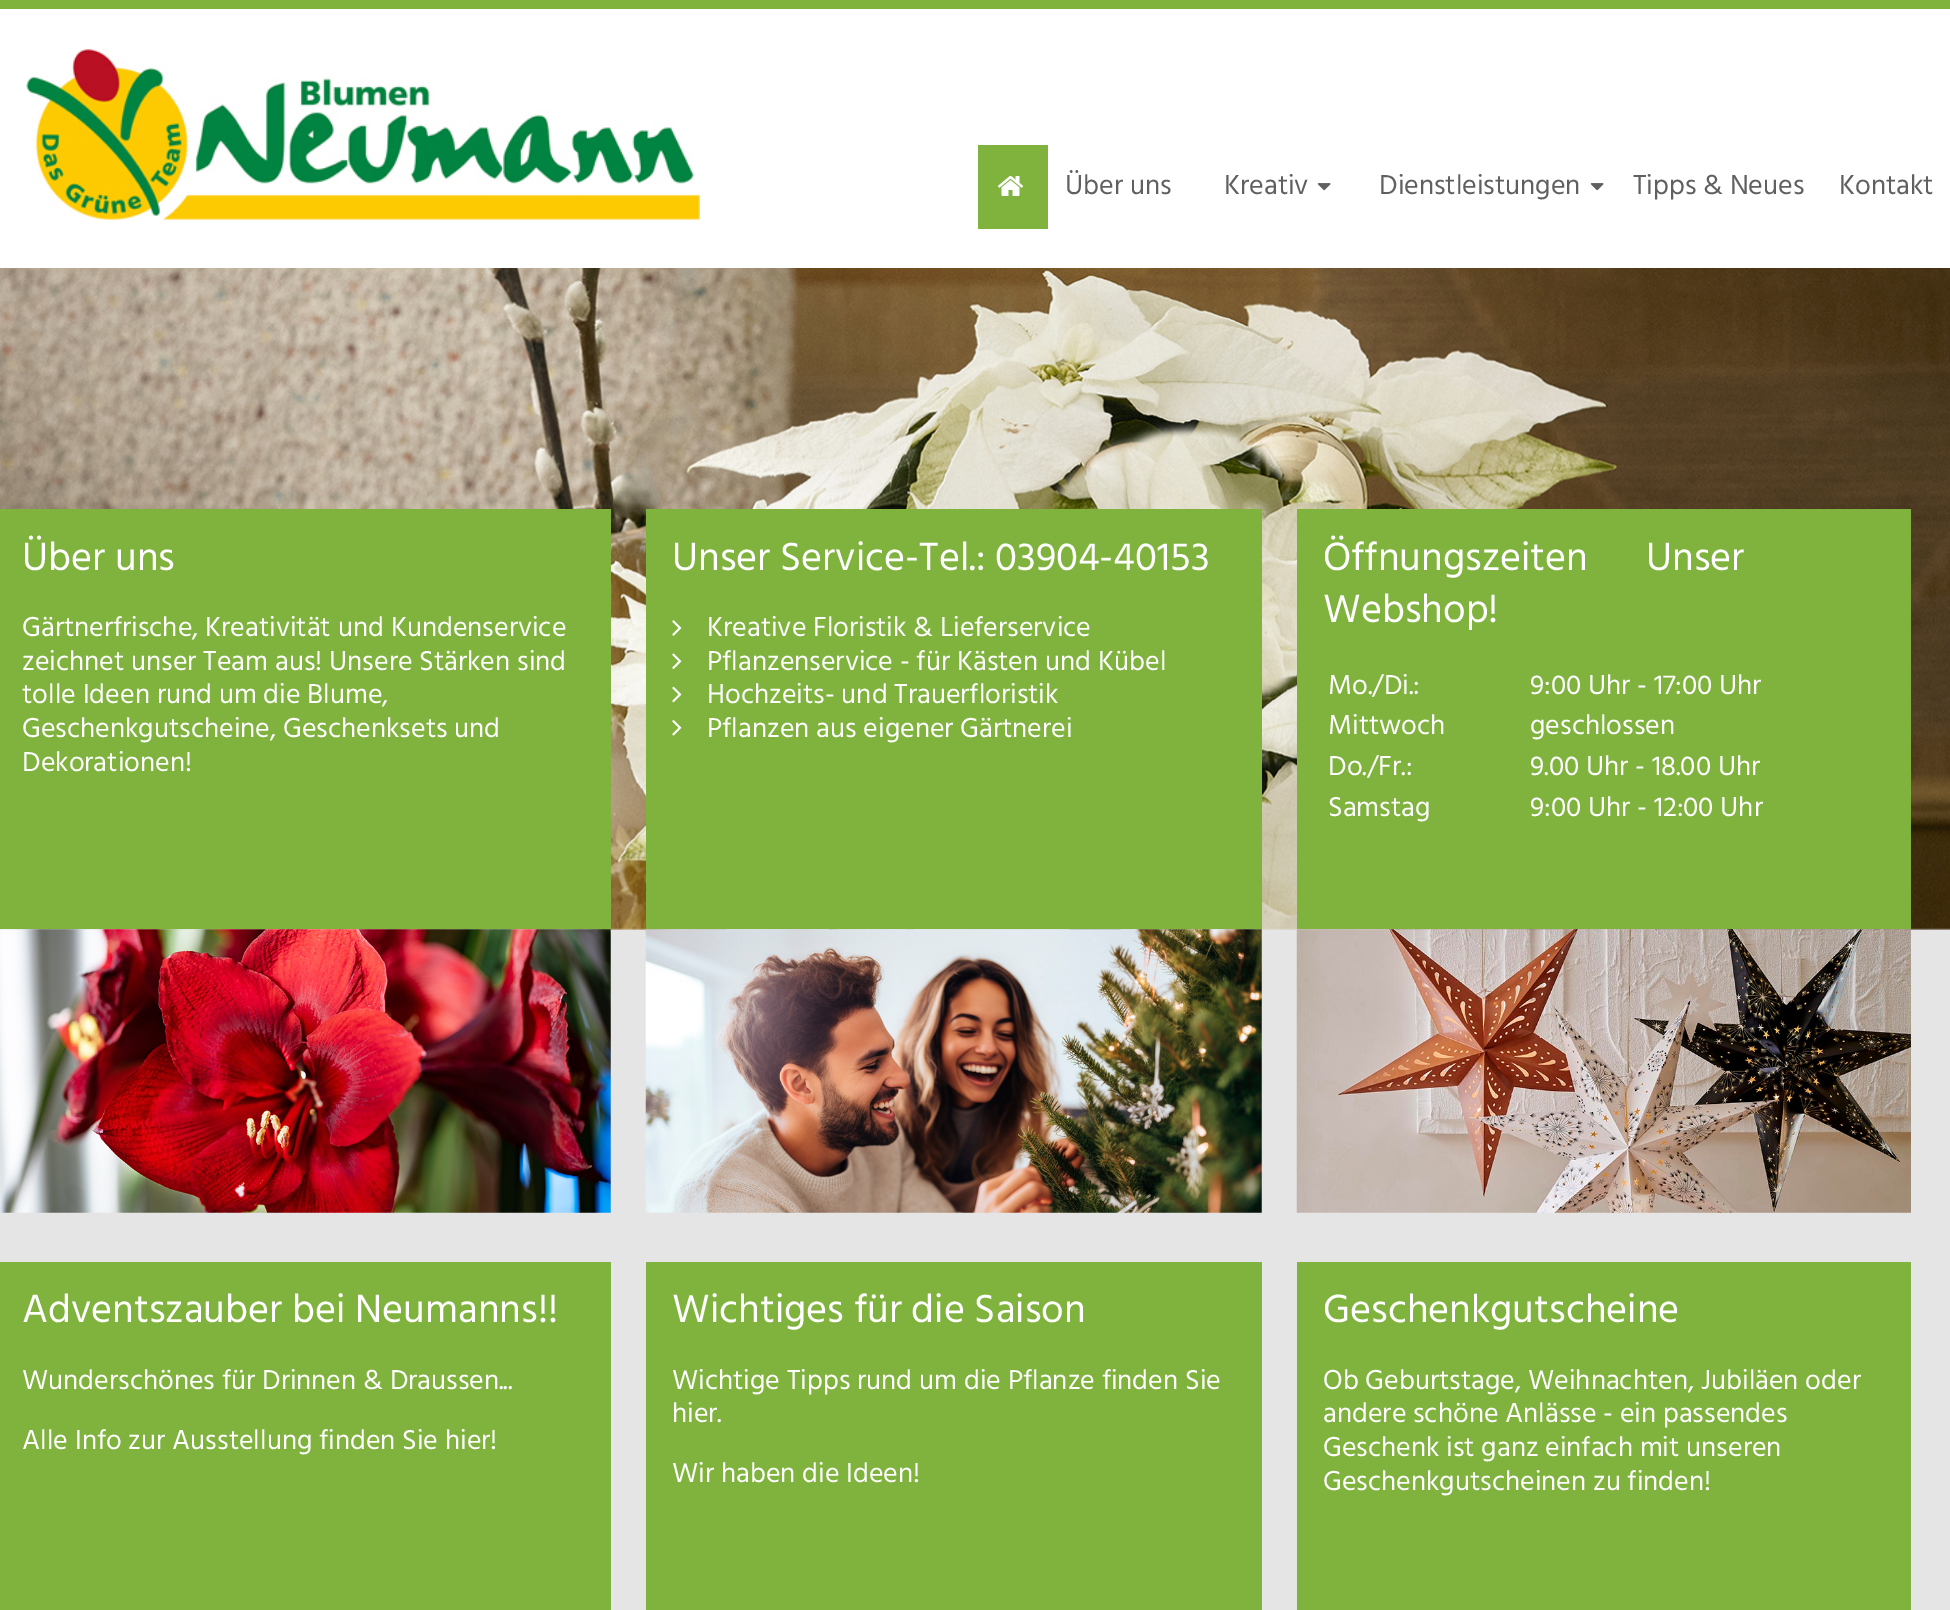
%!PS-Adobe-3.0
%%BoundingBox: 0 0 1950 1610
%%LanguageLevel: 3
%%Pages: 1
%%EndComments
%%BeginProlog
/setink { dup -16 bitshift 255 div exch dup -8 bitshift 255 and 255 div exch 255 and 255 div setrgbcolor } def
/usefont { [ exch dup neg 0 0 3 -1 roll 0 0 ] selectfont } def
/drawimage { 5 dict begin { /h /w /y /x /name } { exch def } forall
  gsave x y translate w h scale
  w h 8 [w 0 0 h 0 0] name (r) file false 3 colorimage grestore end } def
%%EndProlog
%%BeginSetup
<< /PageSize [1950 1610] >> setpagedevice
%%EndSetup
%%Page: 1 1
0 1610 translate 1 -1 scale
4 setmiterlimit
16#FFFFFF setink
0 0 1950 1610 rectfill
16#7FB33E setink
0 0 1950 9 rectfill
(img1.raw) 26 49 674 172 drawimage
978 145 70 84 rectfill
(img2.raw) 998 176 25 20 drawimage
/Hind-Regular 28 usefont
16#606060 setink
1065 194 moveto (Über uns) show
1224 194 moveto (Kreativ) show
(img3.raw) 1317 183 14 8 drawimage
1379 194 moveto (Dienstleistungen) show
(img3.raw) 1590 183 14 8 drawimage
1633 194 moveto (Tipps & Neues) show
1839 194 moveto (Kontakt) show
16#E5E5E5 setink
0 928 1950 682 rectfill
(img4.raw) 0 268 1950 662 drawimage
16#7FB33E setink
0 509 611 420 rectfill
/Hind-Regular 40.25 usefont
16#FFFFFF setink
22 570 moveto (Über uns) show
/Hind-Regular 28 usefont
[
    [(Gärtnerfrische, Kreativität und Kundenservice) 22 636]
    [(zeichnet unser Team aus! Unsere Stärken sind) 22 670]
    [(tolle Ideen rund um die Blume,) 22 703]
    [(Geschenkgutscheine, Geschenksets und) 22 737]
    [(Dekorationen!) 22 771]
] { aload pop moveto show } forall
(img5.raw) 0 929 611 284 drawimage
16#7FB33E setink
646 509 616 420 rectfill
/Hind-Regular 40.25 usefont
16#FFFFFF setink
672 570 moveto (Unser Service-Tel.: 03904-40153) show
(img6.raw) 672 620 10 16 drawimage
/Hind-Regular 28 usefont
707 636 moveto (Kreative Floristik & Lieferservice) show
(img7.raw) 672 653 10 16 drawimage
707 670 moveto (Pflanzenservice - für Kästen und Kübel) show
(img8.raw) 672 686 10 17 drawimage
707 703 moveto (Hochzeits- und Trauerfloristik) show
(img9.raw) 672 720 10 16 drawimage
707 737 moveto (Pflanzen aus eigener Gärtnerei) show
(img10.raw) 645 929 617 284 drawimage
16#7FB33E setink
1297 509 614 420 rectfill
/Hind-Regular 40.25 usefont
16#FFFFFF setink
[
    [(Öffnungszeiten) 1323 570]
    [(Unser) 1646 570]
    [(Webshop!) 1323 622]
] { aload pop moveto show } forall
/Hind-Regular 28 usefont
[
    [(Mo./Di.:) 1328 694]
    [(9:00 Uhr - 17:00 Uhr) 1530 694]
    [(Mittwoch) 1328 734]
    [(geschlossen) 1530 734]
    [(Do./Fr.:) 1328 775]
    [(9.00 Uhr - 18.00 Uhr) 1530 775]
    [(Samstag) 1328 816]
    [(9:00 Uhr - 12:00 Uhr) 1530 816]
] { aload pop moveto show } forall
(img11.raw) 1296 929 615 284 drawimage
16#7FB33E setink
0 1262 611 348 rectfill
/Hind-Regular 40.25 usefont
16#FFFFFF setink
22 1322 moveto (Adventszauber bei Neumanns!!) show
/Hind-Regular 28 usefont
22 1389 moveto (Wunderschönes für Drinnen & Draussen...) show
22 1449 moveto (Alle Info zur Ausstellung finden Sie hier!) show
16#7FB33E setink
646 1262 616 348 rectfill
/Hind-Regular 40.25 usefont
16#FFFFFF setink
672 1322 moveto (Wichtiges für die Saison) show
/Hind-Regular 28 usefont
[
    [(Wichtige Tipps rund um die Pflanze finden Sie) 672 1389]
    [(hier.) 672 1422]
    [(Wir haben die Ideen!) 672 1482]
] { aload pop moveto show } forall
16#7FB33E setink
1297 1262 614 348 rectfill
/Hind-Regular 40.25 usefont
16#FFFFFF setink
1323 1322 moveto (Geschenkgutscheine) show
/Hind-Regular 28 usefont
[
    [(Ob Geburtstage, Weihnachten, Jubiläen oder) 1323 1389]
    [(andere schöne Anlässe - ein passendes) 1323 1422]
    [(Geschenk ist ganz einfach mit unseren) 1323 1456]
    [(Geschenkgutscheinen zu finden!) 1323 1490]
] { aload pop moveto show } forall
showpage
%%EOF
